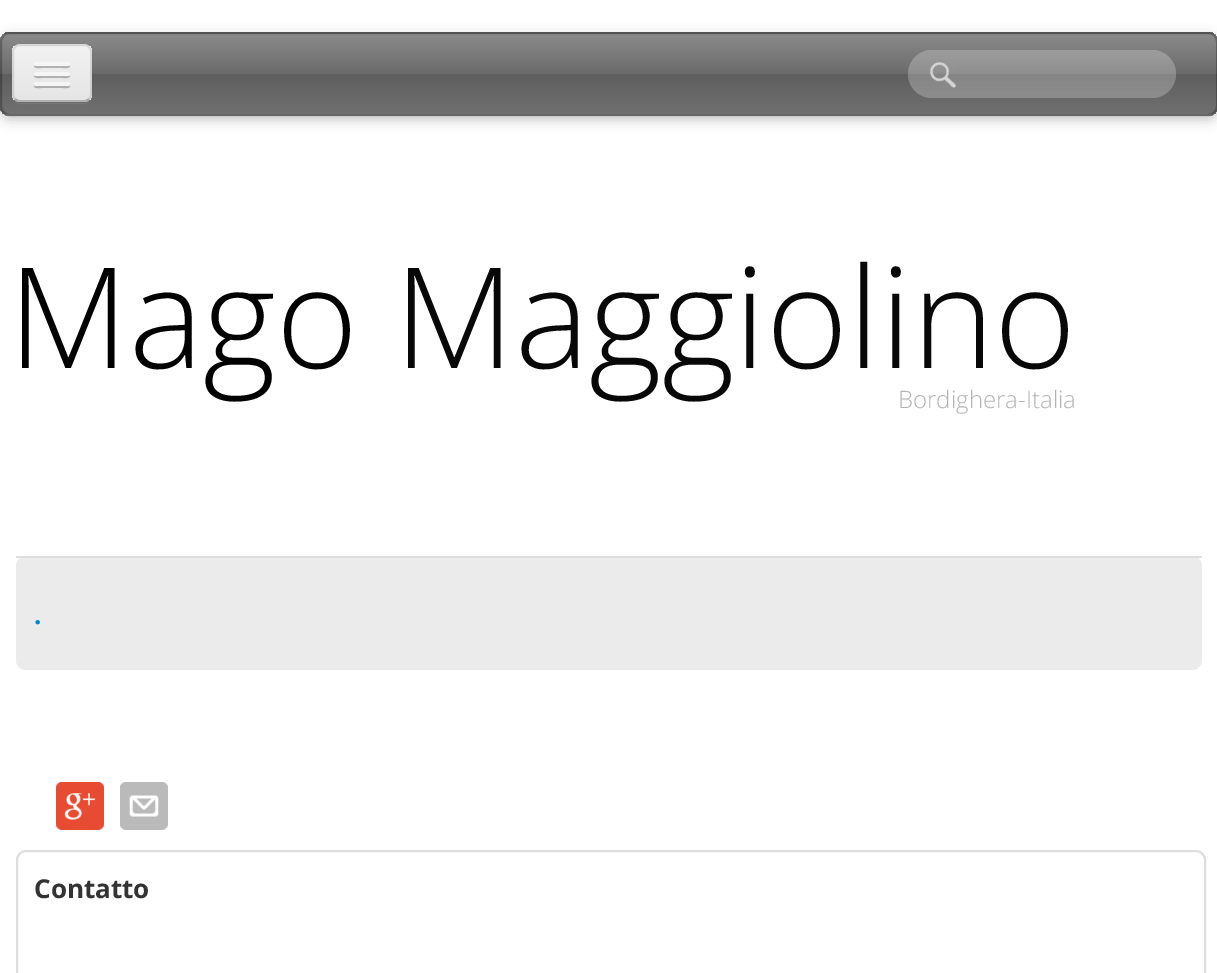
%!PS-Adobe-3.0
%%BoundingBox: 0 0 1217 973
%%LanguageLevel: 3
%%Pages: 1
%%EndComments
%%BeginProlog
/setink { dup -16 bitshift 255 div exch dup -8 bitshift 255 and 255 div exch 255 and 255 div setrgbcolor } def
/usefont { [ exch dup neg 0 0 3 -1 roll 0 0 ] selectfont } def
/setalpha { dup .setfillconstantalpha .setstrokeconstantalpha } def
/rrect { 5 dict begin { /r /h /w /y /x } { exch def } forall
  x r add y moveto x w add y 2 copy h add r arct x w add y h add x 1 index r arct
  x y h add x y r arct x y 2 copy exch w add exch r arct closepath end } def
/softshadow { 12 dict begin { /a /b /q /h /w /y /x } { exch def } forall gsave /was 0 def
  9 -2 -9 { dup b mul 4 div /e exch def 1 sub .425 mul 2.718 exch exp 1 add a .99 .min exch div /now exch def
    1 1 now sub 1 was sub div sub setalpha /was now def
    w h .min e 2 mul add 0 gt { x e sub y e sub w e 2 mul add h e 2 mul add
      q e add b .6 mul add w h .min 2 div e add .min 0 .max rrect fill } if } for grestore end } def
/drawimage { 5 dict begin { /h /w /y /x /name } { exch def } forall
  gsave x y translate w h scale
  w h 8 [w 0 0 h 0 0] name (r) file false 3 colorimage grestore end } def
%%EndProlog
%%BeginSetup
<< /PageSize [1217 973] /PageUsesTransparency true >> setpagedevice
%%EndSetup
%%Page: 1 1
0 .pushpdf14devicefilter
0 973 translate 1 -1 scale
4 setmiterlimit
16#FFFFFF setink
0 0 1217 973 rectfill
16#B3B3B3 setink
0 36 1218 84 10 6 0.75 softshadow
gsave
0 32 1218 84 10 rrect clip newpath
gsave 0 32 moveto 1217 32 lineto 1217 34 lineto 0 34 lineto closepath clip newpath
<< /ShadingType 2 /ColorSpace /DeviceRGB /Coords [609 -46 609 34] /Extend [true true] /Function << /FunctionType 3 /Domain [0 1] /Functions [<< /FunctionType 2 /Domain [0 1] /C0 [0.541 0.541 0.541] /C1 [0.42 0.42 0.42] /N 1 >> << /FunctionType 2 /Domain [0 1] /C0 [0.369 0.369 0.369] /C1 [0.439 0.439 0.439] /N 1 >>] /Bounds [0.5] /Encode [0 1 0 1] >> >> shfill grestore
gsave 0 34 moveto 1217 34 lineto 1217 114 lineto 0 114 lineto closepath clip newpath
<< /ShadingType 2 /ColorSpace /DeviceRGB /Coords [609 34 609 114] /Extend [true true] /Function << /FunctionType 3 /Domain [0 1] /Functions [<< /FunctionType 2 /Domain [0 1] /C0 [0.541 0.541 0.541] /C1 [0.42 0.42 0.42] /N 1 >> << /FunctionType 2 /Domain [0 1] /C0 [0.369 0.369 0.369] /C1 [0.439 0.439 0.439] /N 1 >>] /Bounds [0.5] /Encode [0 1 0 1] >> >> shfill grestore
gsave 0 114 moveto 1217 114 lineto 1217 116 lineto 0 116 lineto closepath clip newpath
<< /ShadingType 2 /ColorSpace /DeviceRGB /Coords [609 114 609 194] /Extend [true true] /Function << /FunctionType 3 /Domain [0 1] /Functions [<< /FunctionType 2 /Domain [0 1] /C0 [0.541 0.541 0.541] /C1 [0.42 0.42 0.42] /N 1 >> << /FunctionType 2 /Domain [0 1] /C0 [0.369 0.369 0.369] /C1 [0.439 0.439 0.439] /N 1 >>] /Bounds [0.5] /Encode [0 1 0 1] >> >> shfill grestore
grestore
0.25 setalpha
16#000000 setink
2 setlinewidth
1 33 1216 82 9 rrect stroke
1 setalpha
16#767676 setink
12 94 moveto 12 106 21 104 31 104 curveto 73 104 lineto 83 104 92 106 92 94 curveto 92 98 88 102 84 102 curveto 20 102 lineto 16 102 12 98 12 94 curveto closepath fill
16#EDEDED setink
12 44 80 58 8 rrect fill
gsave
12 44 80 58 8 rrect clip newpath
gsave 12 46 moveto 92 46 lineto 92 100 lineto 12 100 lineto closepath clip newpath
<< /ShadingType 2 /ColorSpace /DeviceRGB /Coords [52 46 52 100] /Extend [true true] /Function << /FunctionType 2 /Domain [0 1] /C0 [0.949 0.949 0.949] /C1 [0.898 0.898 0.898] /N 1 >> >> shfill grestore
grestore
0.25 setalpha
16#000000 setink
89 99 moveto 87.5 100.5 86 101 84 101 curveto 20 101 lineto 18 101 16.5 100.5 15 99 curveto stroke
0.1 setalpha
15 99 moveto 13.5 97.5 13 96 13 94 curveto 13 52 lineto 13 50 13.5 48.5 15 47 curveto 16.5 45.5 18 45 20 45 curveto 84 45 lineto 86 45 87.5 45.5 89 47 curveto 90.5 48.5 91 50 91 52 curveto 91 94 lineto 91 96 90.5 97.5 89 99 curveto stroke
1 setalpha
16#B2B2B2 setink
34.5 65 moveto 32 69 41 68 41.5 68 curveto 62.5 68 lineto 63 68 72 69 69.5 65 curveto 69.5 65.5 68.5 66 68 66 curveto 36 66 lineto 35.5 66 34.5 65.5 34.5 65 curveto closepath fill
16#F5F5F5 setink
34 62 36 4 2 rrect fill
16#B0B0B0 setink
34.5 75 moveto 32 79 41 78 41.5 78 curveto 62.5 78 lineto 63 78 72 79 69.5 75 curveto 69.5 75.5 68.5 76 68 76 curveto 36 76 lineto 35.5 76 34.5 75.5 34.5 75 curveto closepath fill
16#F5F5F5 setink
34 72 36 4 2 rrect fill
16#AEAEAE setink
34.5 85 moveto 32 89 41 88 41.5 88 curveto 62.5 88 lineto 63 88 72 89 69.5 85 curveto 69.5 85.5 68.5 86 68 86 curveto 36 86 lineto 35.5 86 34.5 85.5 34.5 85 curveto closepath fill
16#F5F5F5 setink
34 82 36 4 2 rrect fill
0.24 setalpha
16#FFFFFF setink
908 50 268 48 24 rrect fill
1 setalpha
(img1.raw) 930 62 26 26 drawimage
/OpenSans-Light 140 usefont
16#000000 setink
8 368 moveto (Mago) show
16#080808 setink
394 368 moveto (Maggiolino) show
/OpenSans-Light 24 usefont
16#B3B3B3 setink
898 408 moveto (Bordighera-Italia) show
16#EBEBEB setink
16 556 1186 114 10 rrect fill
16#DEDEDE setink
16 556 1186 2 rectfill
/OpenSans-Bold 26 usefont
16#0088CC setink
34 624 moveto (.) show
(img2.raw) 56 782 48 48 drawimage
(img3.raw) 120 782 48 48 drawimage
16#DEDEDE setink
17 851 1188 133 9 rrect stroke
16#333333 setink
34 898 moveto (Contatto) show
.poppdf14devicefilter showpage
%%EOF
